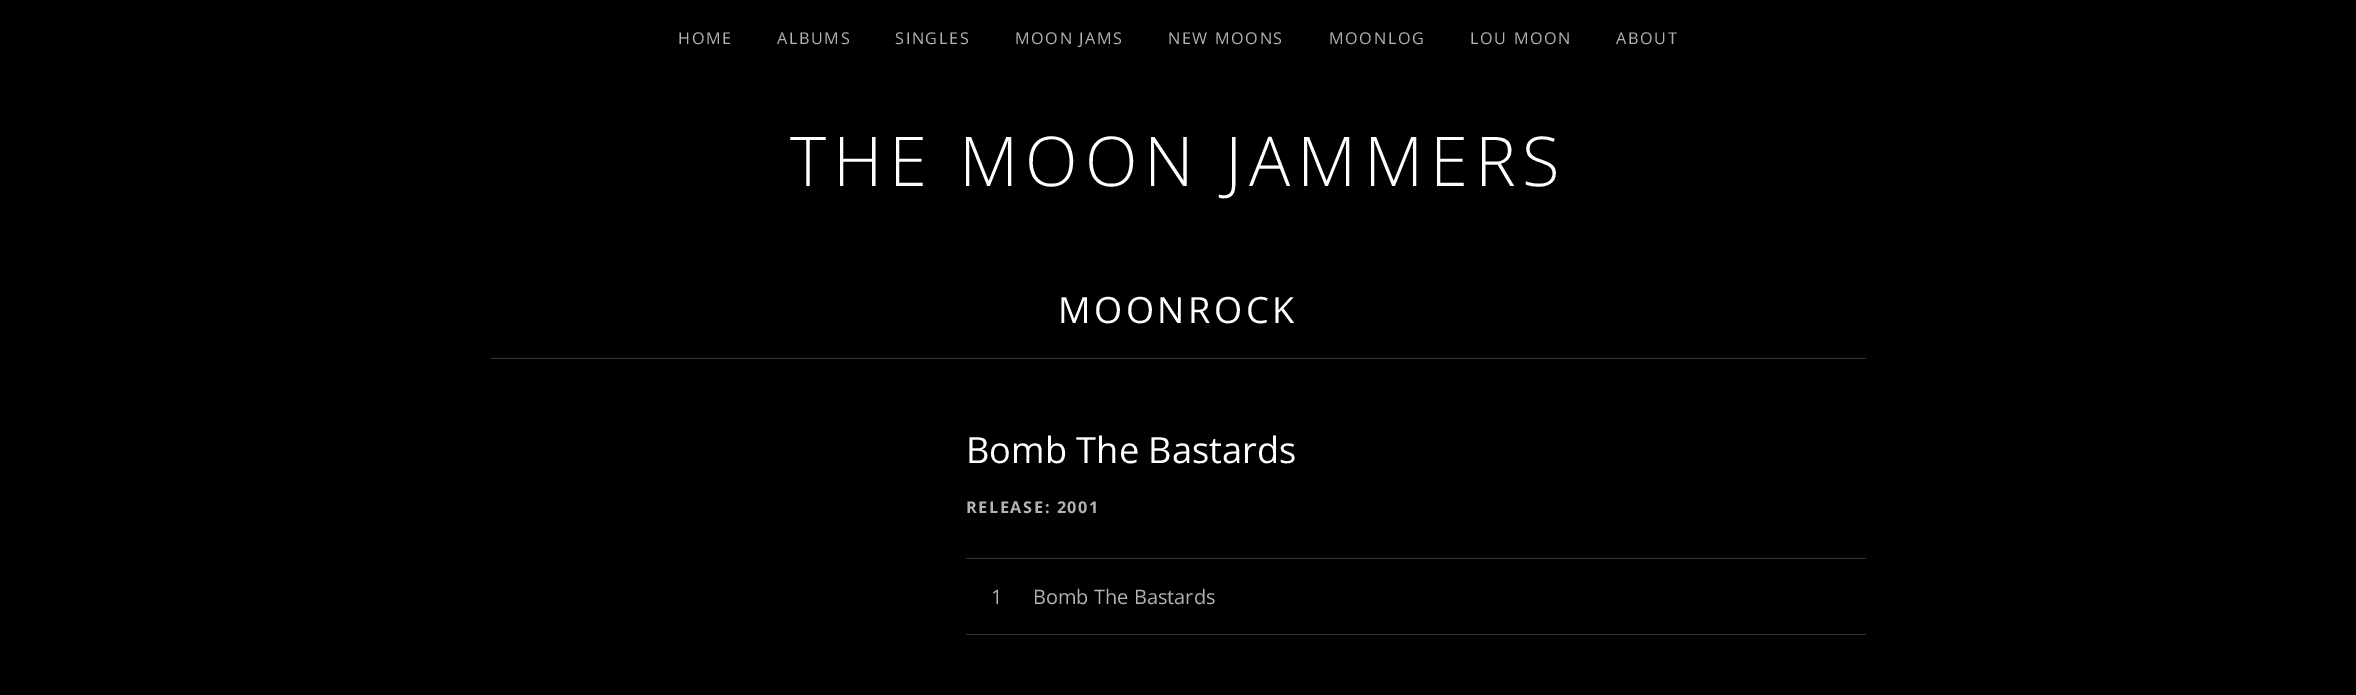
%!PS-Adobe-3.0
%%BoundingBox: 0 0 2356 695
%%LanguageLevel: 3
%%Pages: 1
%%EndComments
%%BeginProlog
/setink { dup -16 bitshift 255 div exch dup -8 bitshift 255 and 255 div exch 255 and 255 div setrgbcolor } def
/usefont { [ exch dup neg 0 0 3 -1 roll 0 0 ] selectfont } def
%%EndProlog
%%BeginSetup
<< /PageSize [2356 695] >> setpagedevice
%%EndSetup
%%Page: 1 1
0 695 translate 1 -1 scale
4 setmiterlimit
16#000000 setink
0 0 2356 695 rectfill
/OpenSans-Regular 16.25 usefont
16#B3B3B3 setink
678 44 moveto 1.6 0 (HOME) ashow
777 44 moveto 1.6 0 (ALBUMS) ashow
895 44 moveto 1.6 0 (SINGLES) ashow
1015 44 moveto 1.6 0 (MOON JAMS) ashow
1168 44 moveto 1.6 0 (NEW MOONS) ashow
1329 44 moveto 1.6 0 (MOONLOG) ashow
1470 44 moveto 1.6 0 (LOU MOON) ashow
1616 44 moveto 1.6 0 (ABOUT) ashow
/OpenSans-Light 68.75 usefont
16#FFFFFF setink
790 186 moveto 6.9 0 (THE MOON JAMMERS) ashow
16#333333 setink
491 358 1375 1 rectfill
/OpenSans-Regular 36.25 usefont
16#FFFFFF setink
1058 323 moveto 3.5 0 (MOONROCK) ashow
966 463 moveto (Bomb The Bastards) show
/OpenSans-Bold 16.25 usefont
16#B3B3B3 setink
966 513 moveto 1.6 0 (RELEASE: 2001) ashow
16#333333 setink
966 558 900 1 rectfill
966 634 900 1 rectfill
/OpenSans-Regular 20 usefont
16#B3B3B3 setink
991 604 moveto (1) show
1033 604 moveto (Bomb The Bastards) show
showpage
%%EOF
